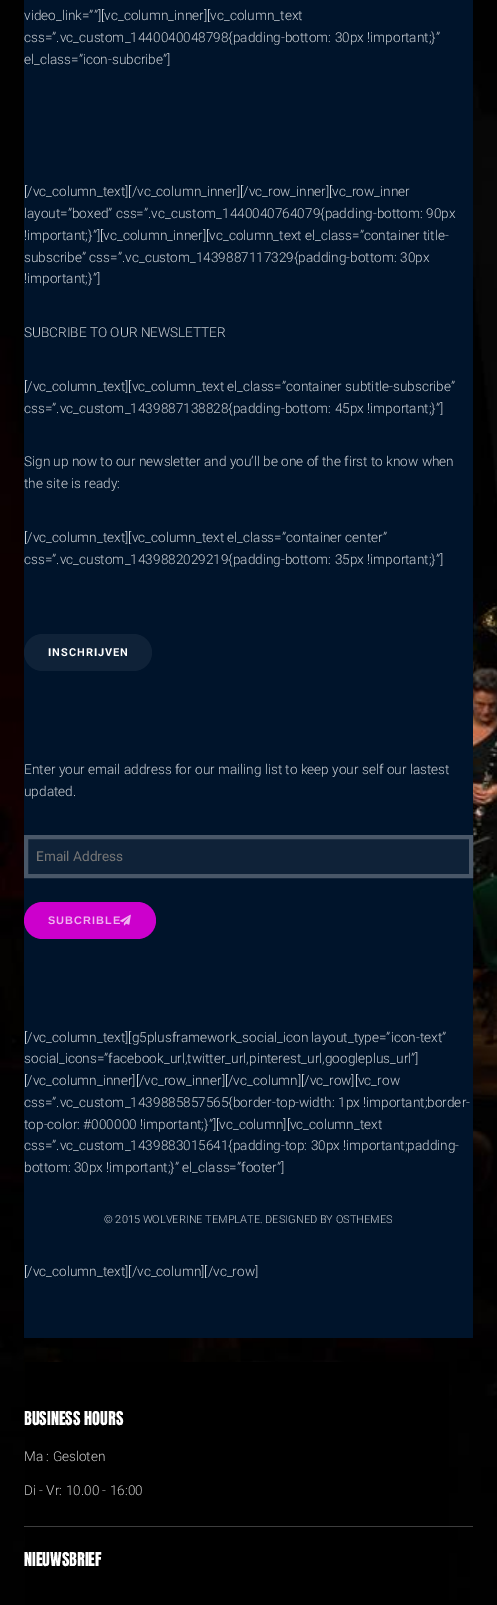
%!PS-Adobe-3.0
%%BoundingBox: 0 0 497 1605
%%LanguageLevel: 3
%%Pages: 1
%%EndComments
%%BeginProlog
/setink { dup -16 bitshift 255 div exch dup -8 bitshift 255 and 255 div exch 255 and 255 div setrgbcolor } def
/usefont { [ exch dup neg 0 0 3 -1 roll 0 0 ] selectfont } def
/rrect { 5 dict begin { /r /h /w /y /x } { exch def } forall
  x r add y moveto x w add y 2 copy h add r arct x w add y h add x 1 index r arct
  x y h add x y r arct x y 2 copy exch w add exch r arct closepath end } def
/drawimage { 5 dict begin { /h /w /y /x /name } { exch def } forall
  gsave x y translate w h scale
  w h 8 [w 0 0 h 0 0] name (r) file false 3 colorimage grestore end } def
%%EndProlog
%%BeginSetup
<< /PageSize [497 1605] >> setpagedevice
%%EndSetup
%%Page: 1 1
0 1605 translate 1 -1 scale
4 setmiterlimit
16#FFFFFF setink
0 0 497 1605 rectfill
(img1.raw) 0 0 497 1605 drawimage
16#00142B setink
24 0 449 1338 rectfill
/Roboto-Light 13.6 usefont
16#CCD0D5 setink
[
    [(video_link=””][vc_column_inner][vc_column_text) 24 20]
    [(css=”.vc_custom_1440040048798{padding-bottom: 30px !important;}”) 24 42]
    [(el_class=”icon-subcribe”]) 24 64]
    [([/vc_column_text][/vc_column_inner][/vc_row_inner][vc_row_inner) 24 196]
    [(layout=”boxed” css=”.vc_custom_1440040764079{padding-bottom: 90px) 24 218]
    [(!important;}”][vc_column_inner][vc_column_text el_class=”container title-) 24 240]
    [(subscribe” css=”.vc_custom_1439887117329{padding-bottom: 30px) 24 262]
    [(!important;}”]) 24 283]
    [(SUBCRIBE TO OUR NEWSLETTER) 24 337]
    [([/vc_column_text][vc_column_text el_class=”container subtitle-subscribe”) 24 391]
    [(css=”.vc_custom_1439887138828{padding-bottom: 45px !important;}”]) 24 413]
    [(Sign up now to our newsletter and you’ll be one of the first to know when) 24 466]
    [(the site is ready:) 24 488]
    [([/vc_column_text][vc_column_text el_class=”container center”) 24 542]
    [(css=”.vc_custom_1439882029219{padding-bottom: 35px !important;}”]) 24 564]
] { aload pop moveto show } forall
16#0F2238 setink
24 634 128 37 18.5 rrect fill
/Roboto-Bold 11 usefont
16#FFFFFF setink
48 656 moveto 1 0 (INSCHRIJVEN) ashow
/Roboto-Light 13.6 usefont
16#CCD0D5 setink
24 774 moveto (Enter your email address for our mailing list to keep your self our lastest) show
24 796 moveto (updated.) show
16#0F2238 setink
26 837 moveto 471 837 lineto 471 876 lineto 26 876 lineto closepath gsave fill grestore
16#495768 setink
4 setlinewidth
stroke
/Roboto-Regular 13.6 usefont
16#757575 setink
36 861 moveto (Email Address) show
16#CC00CC setink
24 902 132 37 18.5 rrect fill
/LiberationSans-Bold 11 usefont
16#F0B3F0 setink
48 924 moveto 1 0 (SUBCRIBLE) ashow
(img2.raw) 120 914 11 12 drawimage
/Roboto-Light 13.6 usefont
16#CCD0D5 setink
[
    [([/vc_column_text][g5plusframework_social_icon layout_type=”icon-text”) 24 1042]
    [(social_icons=”facebook_url,twitter_url,pinterest_url,googleplus_url”]) 24 1063]
    [([/vc_column_inner][/vc_row_inner][/vc_column][/vc_row][vc_row) 24 1085]
    [(css=”.vc_custom_1439885857565{border-top-width: 1px !important;border-) 24 1107]
    [(top-color: #000000 !important;}”][vc_column][vc_column_text) 24 1129]
    [(css=”.vc_custom_1439883015641{padding-top: 30px !important;padding-) 24 1150]
    [(bottom: 30px !important;}” el_class=”footer”]) 24 1172]
] { aload pop moveto show } forall
/Roboto-Light 11 usefont
104 1223 moveto (© 2015 WOLVERINE TEMPLATE. DESIGNED BY OSTHEMES) show
/Roboto-Light 13.6 usefont
24 1276 moveto ([/vc_column_text][/vc_column][/vc_row]) show
16#000000 setink
25 1362 424 243 rectfill
16#3D3D3D setink
24 1526 449 1 rectfill
/Anton-Regular 16.25 usefont
16#FFFFFF setink
24 1425 moveto (BUSINESS HOURS) show
/Roboto-Light 13.6 usefont
16#CCCCCC setink
24 1461 moveto (Ma : Gesloten) show
24 1495 moveto (Di - Vr: 10.00 - 16:00) show
/Anton-Regular 16.25 usefont
16#FFFFFF setink
24 1566 moveto (NIEUWSBRIEF) show
showpage
%%EOF
